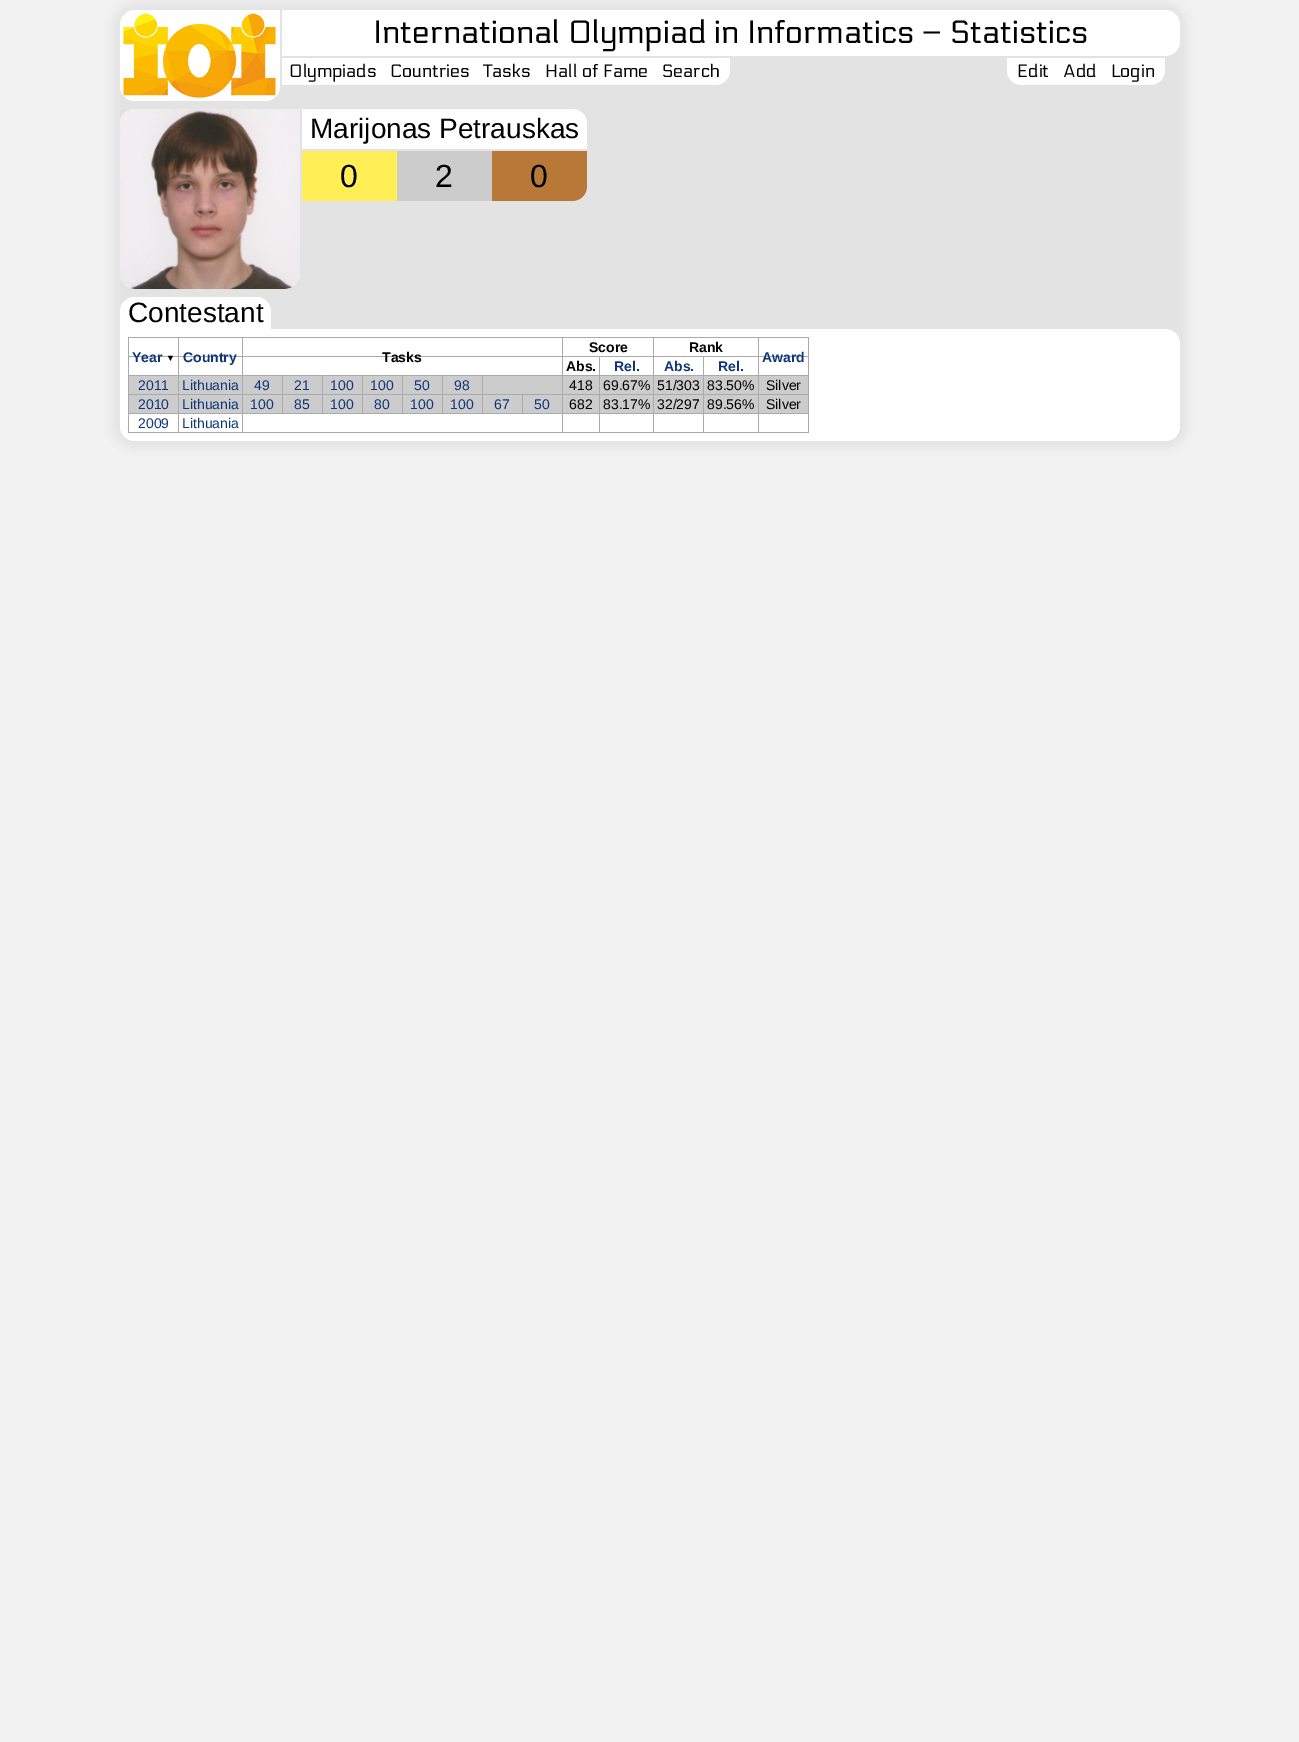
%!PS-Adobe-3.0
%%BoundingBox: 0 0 1299 1742
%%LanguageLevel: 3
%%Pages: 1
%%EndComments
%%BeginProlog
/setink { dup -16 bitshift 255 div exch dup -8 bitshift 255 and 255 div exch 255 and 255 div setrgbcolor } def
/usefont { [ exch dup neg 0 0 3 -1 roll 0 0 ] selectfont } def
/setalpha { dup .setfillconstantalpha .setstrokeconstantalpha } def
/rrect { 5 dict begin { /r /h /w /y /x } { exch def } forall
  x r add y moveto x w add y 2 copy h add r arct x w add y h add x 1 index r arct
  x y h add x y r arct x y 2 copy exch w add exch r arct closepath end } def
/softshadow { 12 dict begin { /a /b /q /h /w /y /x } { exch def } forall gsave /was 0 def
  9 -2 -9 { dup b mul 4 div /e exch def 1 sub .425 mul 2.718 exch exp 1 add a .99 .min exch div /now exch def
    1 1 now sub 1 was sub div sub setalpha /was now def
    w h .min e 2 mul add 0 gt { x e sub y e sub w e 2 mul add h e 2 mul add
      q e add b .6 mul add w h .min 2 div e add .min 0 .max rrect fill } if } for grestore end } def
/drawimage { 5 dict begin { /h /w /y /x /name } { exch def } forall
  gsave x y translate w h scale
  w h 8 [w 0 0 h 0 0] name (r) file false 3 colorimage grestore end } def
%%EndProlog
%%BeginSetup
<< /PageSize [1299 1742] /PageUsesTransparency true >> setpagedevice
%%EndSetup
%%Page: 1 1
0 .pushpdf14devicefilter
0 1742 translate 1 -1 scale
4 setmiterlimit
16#F2F2F2 setink
0 0 1299 1742 rectfill
16#E2E2E2 setink
113 3 1074 445 22 5 1 softshadow
16#FFFFFF setink
135 10 moveto 280 10 lineto 280 86 lineto 280 94.5 273.5 101 265 101 curveto 135 101 lineto 126.5 101 120 94.5 120 86 curveto 120 25 lineto 120 16.5 126.5 10 135 10 curveto closepath fill
(img1.raw) 123 13 153 85 drawimage
282 10 moveto 1165 10 lineto 1173.5 10 1180 16.5 1180 25 curveto 1180 41 lineto 1180 49.5 1173.5 56 1165 56 curveto 282 56 lineto closepath fill
/Electrolize-Regular 32 usefont
16#000000 setink
373 43 moveto (International Olympiad in Informatics – Statistics) show
16#FFFFFF setink
282 58 373 27 rectfill
/Electrolize-Regular 18 usefont
16#000000 setink
[
    [(Olympiads) 289 77]
    [(Countries) 390 77]
    [(Tasks) 483 77]
    [(Hall of Fame) 545 77]
] { aload pop moveto show } forall
16#FFFFFF setink
655 58 moveto 730 58 lineto 730 70 lineto 730 78.5 723.5 85 715 85 curveto 655 85 lineto closepath fill
16#000000 setink
662 77 moveto (Search) show
16#FFFFFF setink
1007 58 moveto 1056 58 lineto 1056 85 lineto 1022 85 lineto 1013.5 85 1007 78.5 1007 70 curveto closepath fill
16#000000 setink
1017 77 moveto (Edit) show
16#FFFFFF setink
1056 58 48 27 rectfill
16#000000 setink
1063 77 moveto (Add) show
16#FFFFFF setink
1104 58 moveto 1165 58 lineto 1165 70 lineto 1165 78.5 1158.5 85 1150 85 curveto 1104 85 lineto closepath fill
16#000000 setink
1111 77 moveto (Login) show
16#FFFFFF setink
135 109 moveto 300 109 lineto 300 274 lineto 300 282.5 293.5 289 285 289 curveto 135 289 lineto 126.5 289 120 282.5 120 274 curveto 120 124 lineto 120 115.5 126.5 109 135 109 curveto closepath fill
(img2.raw) 120 109 180 180 drawimage
302 109 moveto 572 109 lineto 580.5 109 587 115.5 587 124 curveto 587 149 lineto 302 149 lineto closepath fill
/LiberationSans-Regular 28 usefont
16#000000 setink
310 138 moveto (Marijonas Petrauskas) show
16#FFEE55 setink
302 151 95 50 rectfill
/LiberationSans-Regular 32 usefont
16#000000 setink
340 187 moveto (0) show
16#CCCCCC setink
397 151 95 50 rectfill
16#000000 setink
435 187 moveto (2) show
16#B87838 setink
492 151 moveto 587 151 lineto 587 186 lineto 587 194.5 580.5 201 572 201 curveto 492 201 lineto closepath fill
16#000000 setink
530 187 moveto (0) show
16#FFFFFF setink
135 297 moveto 256 297 lineto 264.5 297 271 303.5 271 312 curveto 271 329 lineto 120 329 lineto 120 312 lineto 120 303.5 126.5 297 135 297 curveto closepath fill
/LiberationSans-Regular 28 usefont
16#000000 setink
128 322 moveto (Contestant) show
16#FFFFFF setink
120 329 moveto 1165 329 lineto 1173.5 329 1180 335.5 1180 344 curveto 1180 426 lineto 1180 434.5 1173.5 441 1165 441 curveto 135 441 lineto 126.5 441 120 434.5 120 426 curveto closepath fill
[
    [128 337 681 1 16#AAAAAA]
    [808 337 1 96 16#AAAAAA]
    [128 432 681 1 16#AAAAAA]
    [128 337 1 96 16#AAAAAA]
] { aload pop setink rectfill } forall
/LiberationSans-Bold 14 usefont
16#000000 setink
589 352 moveto (Score) show
689 352 moveto (Rank) show
16#AAAAAA setink
128 356 681 1 rectfill
16#0F3678 setink
132 362 moveto (Year) show
/LiberationSans-Bold 9 usefont
16#000000 setink
166 361 moveto (▼) show
/LiberationSans-Bold 14 usefont
16#0F3678 setink
183 362 moveto (Country) show
16#000000 setink
382 362 moveto (Tasks) show
16#0F3678 setink
762 362 moveto (Award) show
16#000000 setink
566 371 moveto (Abs.) show
16#0F3678 setink
[
    [(Rel.) 614 371]
    [(Abs.) 664 371]
    [(Rel.) 718 371]
] { aload pop moveto show } forall
16#AAAAAA setink
128 375 681 1 rectfill
16#CCCCCC setink
129 376 49 18 rectfill
/LiberationSans-Regular 14 usefont
16#0F3678 setink
138 390 moveto (2011) show
16#CCCCCC setink
179 376 63 18 rectfill
16#0F3678 setink
182 390 moveto (Lithuania) show
16#CCCCCC setink
243 376 39 18 rectfill
16#0F3678 setink
254 390 moveto (49) show
16#CCCCCC setink
283 376 39 18 rectfill
16#0F3678 setink
294 390 moveto (21) show
16#CCCCCC setink
323 376 39 18 rectfill
16#0F3678 setink
330 390 moveto (100) show
16#CCCCCC setink
363 376 39 18 rectfill
16#0F3678 setink
370 390 moveto (100) show
16#CCCCCC setink
403 376 39 18 rectfill
16#0F3678 setink
414 390 moveto (50) show
16#CCCCCC setink
443 376 39 18 rectfill
16#0F3678 setink
454 390 moveto (98) show
16#CCCCCC setink
483 376 79 18 rectfill
563 376 36 18 rectfill
16#000000 setink
569 390 moveto (418) show
16#CCCCCC setink
600 376 53 18 rectfill
16#000000 setink
603 390 moveto (69.67%) show
16#CCCCCC setink
654 376 49 18 rectfill
16#000000 setink
657 390 moveto (51/303) show
16#CCCCCC setink
704 376 54 18 rectfill
16#000000 setink
707 390 moveto (83.50%) show
16#CCCCCC setink
759 376 49 18 rectfill
16#000000 setink
766 390 moveto (Silver) show
16#AAAAAA setink
128 394 681 1 rectfill
16#CCCCCC setink
129 395 49 18 rectfill
16#0F3678 setink
138 409 moveto (2010) show
16#CCCCCC setink
179 395 63 18 rectfill
16#0F3678 setink
182 409 moveto (Lithuania) show
16#CCCCCC setink
243 395 39 18 rectfill
16#0F3678 setink
250 409 moveto (100) show
[
    [283 395 39 18 16#CCCCCC]
    [128 413 681 1 16#AAAAAA]
    [282 375 1 39 16#AAAAAA]
] { aload pop setink rectfill } forall
16#0F3678 setink
294 409 moveto (85) show
16#CCCCCC setink
323 395 39 18 rectfill
16#AAAAAA setink
322 375 1 39 rectfill
16#0F3678 setink
330 409 moveto (100) show
16#CCCCCC setink
363 395 39 18 rectfill
16#AAAAAA setink
362 375 1 39 rectfill
16#0F3678 setink
374 409 moveto (80) show
16#CCCCCC setink
403 395 39 18 rectfill
16#AAAAAA setink
402 375 1 39 rectfill
16#0F3678 setink
410 409 moveto (100) show
16#CCCCCC setink
443 395 39 18 rectfill
16#AAAAAA setink
442 375 1 39 rectfill
16#0F3678 setink
450 409 moveto (100) show
16#CCCCCC setink
483 395 39 18 rectfill
16#AAAAAA setink
482 375 1 39 rectfill
16#0F3678 setink
494 409 moveto (67) show
16#CCCCCC setink
523 395 39 18 rectfill
16#AAAAAA setink
522 394 1 20 rectfill
16#0F3678 setink
534 409 moveto (50) show
16#CCCCCC setink
563 395 36 18 rectfill
16#000000 setink
569 409 moveto (682) show
16#CCCCCC setink
600 395 53 18 rectfill
16#000000 setink
603 409 moveto (83.17%) show
16#CCCCCC setink
654 395 49 18 rectfill
16#000000 setink
657 409 moveto (32/297) show
16#CCCCCC setink
704 395 54 18 rectfill
16#000000 setink
707 409 moveto (89.56%) show
16#CCCCCC setink
759 395 49 18 rectfill
16#000000 setink
766 409 moveto (Silver) show
16#0F3678 setink
138 428 moveto (2009) show
16#AAAAAA setink
178 337 1 96 rectfill
16#0F3678 setink
182 428 moveto (Lithuania) show
[
    [242 337 1 96 16#AAAAAA]
    [562 337 1 96 16#AAAAAA]
    [599 356 1 77 16#AAAAAA]
    [653 337 1 96 16#AAAAAA]
    [703 356 1 77 16#AAAAAA]
    [758 337 1 96 16#AAAAAA]
] { aload pop setink rectfill } forall
.poppdf14devicefilter showpage
%%EOF
